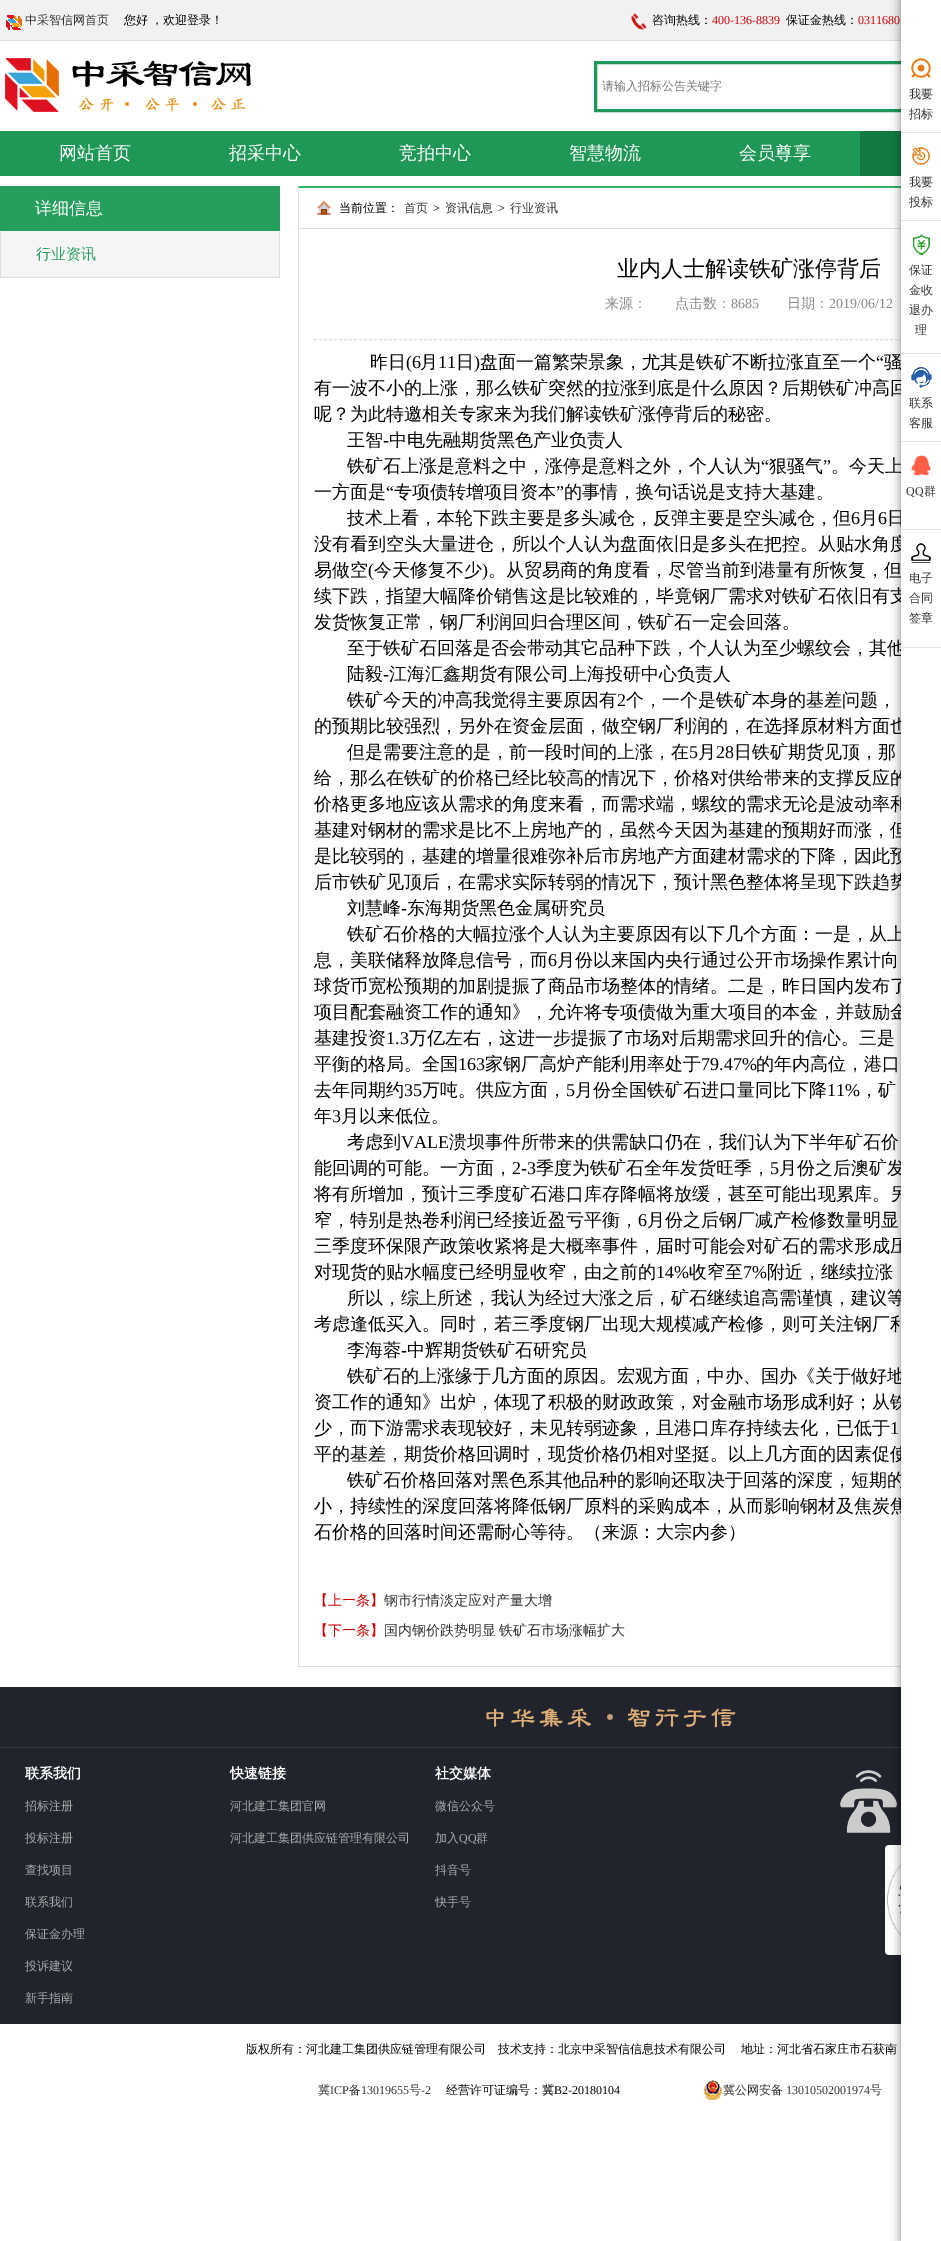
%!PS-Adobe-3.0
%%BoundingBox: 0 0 941 2241
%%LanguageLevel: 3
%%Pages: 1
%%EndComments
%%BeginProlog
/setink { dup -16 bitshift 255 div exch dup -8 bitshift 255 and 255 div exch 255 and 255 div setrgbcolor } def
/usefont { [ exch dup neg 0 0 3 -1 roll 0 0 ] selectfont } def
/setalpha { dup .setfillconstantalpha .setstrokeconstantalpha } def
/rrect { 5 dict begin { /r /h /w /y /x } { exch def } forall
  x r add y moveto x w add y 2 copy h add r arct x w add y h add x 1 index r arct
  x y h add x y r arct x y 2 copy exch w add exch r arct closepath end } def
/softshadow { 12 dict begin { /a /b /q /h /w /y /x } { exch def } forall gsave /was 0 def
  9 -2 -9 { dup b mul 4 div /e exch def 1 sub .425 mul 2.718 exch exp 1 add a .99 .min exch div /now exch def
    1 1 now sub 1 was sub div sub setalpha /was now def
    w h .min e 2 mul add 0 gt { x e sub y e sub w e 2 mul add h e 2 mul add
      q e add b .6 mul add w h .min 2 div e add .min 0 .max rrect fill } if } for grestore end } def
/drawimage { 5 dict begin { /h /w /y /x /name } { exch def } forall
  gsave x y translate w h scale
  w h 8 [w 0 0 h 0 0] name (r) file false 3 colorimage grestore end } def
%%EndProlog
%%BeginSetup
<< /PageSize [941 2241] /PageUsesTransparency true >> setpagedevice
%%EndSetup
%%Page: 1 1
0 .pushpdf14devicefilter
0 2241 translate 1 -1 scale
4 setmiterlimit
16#FFFFFF setink
0 0 941 2241 rectfill
16#F1F1F1 setink
0 0 901 40 rectfill
16#DDDDDD setink
0 40 901 1 rectfill
(img1.raw) 6 15 16 15 drawimage
/WenQuanYiZenHei-Medium 12 usefont
16#333333 setink
25 24 moveto (中采智信网首页) show
16#000000 setink
124 24 moveto (您好) show
151 24 moveto (，欢迎登录！) show
(img2.raw) 631 13 16 17 drawimage
652 24 moveto (咨询热线：) show
/LiberationSerif-Regular 12 usefont
16#CC0000 setink
712 24 moveto (400-136-8839) show
/WenQuanYiZenHei-Medium 12 usefont
16#000000 setink
786 24 moveto (保证金热线：) show
/LiberationSerif-Regular 12 usefont
16#CC0000 setink
858 24 moveto (0311680) show
(img3.raw) 5 58 246 54 drawimage
16#1F9756 setink
3 setlinewidth
595.5 62.5 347 48 rectstroke
/WenQuanYiZenHei-Medium 12 usefont
16#757575 setink
602 90 moveto (请输入招标公告关键字) show
16#1F9756 setink
0 131 860 45 rectfill
/WenQuanYiZenHei-Medium 18 usefont
16#FFFFFF setink
[
    [(网站首页) 59 159]
    [(招采中心) 229 159]
    [(竞拍中心) 399 159]
    [(智慧物流) 569 159]
    [(会员尊享) 739 159]
] { aload pop moveto show } forall
16#117941 setink
860 131 41 45 rectfill
16#32B16C setink
298 186 moveto 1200 186 lineto 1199 188 lineto 299 188 lineto closepath fill
16#DDDDDD setink
298 1666 603 1 rectfill
299 228 602 1 rectfill
1 setlinewidth
[3 2.01] 0 setdash
314 339.5 moveto 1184 339.5 lineto stroke
16#21242D setink
0 1687 901 337 rectfill
16#383A42 setink
0 1747 901 1 rectfill
(img12.raw) 840 1770 57 63 drawimage
(img13.raw) 885 1845 16 110 drawimage
16#000000 setink
901 0 40 2241 0 5 0.5 softshadow
[
    [(骚) 884 368]
    [(有一波不小的上涨，那么铁矿突然的拉涨到底是什么原因？后期铁矿冲高回) 314 394]
    [(。今天上) 831 472]
    [(日) 887 524]
    [(没有看到空头大量进仓，所以个人认为盘面依旧是多头在把控。从贴水角度) 314 550]
    [(。从贸易商的角度看，尽管当前到港量有所恢复，但) 488 576]
    [(续下跌，指望大幅降价销售这是比较难的，毕竟钢厂需求对铁矿石依旧有支) 314 602]
    [(至于铁矿石回落是否会带动其它品种下跌，个人认为至少螺纹会，其他) 347 654]
    [(的预期比较强烈，另外在资金层面，做空钢厂利润的，在选择原材料方面也) 314 732]
    [(给，那么在铁矿的价格已经比较高的情况下，价格对供给带来的支撑反应的) 314 784]
    [(价格更多地应该从需求的角度来看，而需求端，螺纹的需求无论是波动率和) 314 810]
    [(基建对钢材的需求是比不上房地产的，虽然今天因为基建的预期好而涨，但) 314 836]
    [(是比较弱的，基建的增量很难弥补后市房地产方面建材需求的下降，因此预) 314 862]
    [(后市铁矿见顶后，在需求实际转弱的情况下，预计黑色整体将呈现下跌趋势) 314 888]
    [(铁矿石价格的大幅拉涨个人认为主要原因有以下几个方面：一是，从上) 347 940]
    [(球货币宽松预期的加剧提振了商品市场整体的情绪。二是，昨日国内发布了) 314 992]
    [(项目配套融资工作的通知》，允许将专项债做为重大项目的本金，并鼓励金) 314 1018]
    [(月份之后澳矿发) 779 1174]
    [(将有所增加，预计三季度矿石港口库存降幅将放缓，甚至可能出现累库。另) 314 1200]
    [(三季度环保限产政策收紧将是大概率事件，届时可能会对矿石的需求形成压) 314 1252]
    [(所以，综上所述，我认为经过大涨之后，矿石继续追高需谨慎，建议等) 347 1304]
    [(考虑逢低买入。同时，若三季度钢厂出现大规模减产检修，则可关注钢厂利) 314 1330]
    [(铁矿石的上涨缘于几方面的原因。宏观方面，中办、国办《关于做好地) 347 1382]
    [(资工作的通知》出炉，体现了积极的财政政策，对金融市场形成利好；从铁) 314 1408]
    [(平的基差，期货价格回调时，现货价格仍相对坚挺。以上几方面的因素促使) 314 1460]
    [(铁矿石价格回落对黑色系其他品种的影响还取决于回落的深度，短期的) 347 1486]
    [(小，持续性的深度回落将降低钢厂原料的采购成本，从而影响钢材及焦炭焦) 314 1512]
] { aload pop moveto show } forall
16#FFFFFF setink
901 0 40 2241 rectfill
16#E5E5E5 setink
901 132 40 1 rectfill
(img4.raw) 911 58 20 20 drawimage
/WenQuanYiZenHei-Medium 12 usefont
16#333333 setink
909 98 moveto (我要) show
909 118 moveto (招标) show
16#E5E5E5 setink
901 220 40 1 rectfill
(img5.raw) 912 147 18 18 drawimage
16#333333 setink
909 186 moveto (我要) show
909 206 moveto (投标) show
16#E5E5E5 setink
901 353 40 1 rectfill
(img6.raw) 913 234 17 21 drawimage
16#333333 setink
[
    [(保证) 909 274]
    [(金收) 909 294]
    [(退办) 909 314]
    [(理) 915 334]
] { aload pop moveto show } forall
16#E5E5E5 setink
901 441 40 1 rectfill
(img7.raw) 911 367 21 21 drawimage
16#333333 setink
909 407 moveto (联系) show
909 427 moveto (客服) show
16#E5E5E5 setink
901 529 40 1 rectfill
(img8.raw) 910 454 21 22 drawimage
/LiberationSerif-Regular 12 usefont
16#333333 setink
906 495 moveto (QQ) show
/WenQuanYiZenHei-Medium 12 usefont
924 495 moveto (群) show
16#E5E5E5 setink
901 647 40 1 rectfill
(img9.raw) 911 543 20 20 drawimage
16#333333 setink
[
    [(电子) 909 582]
    [(合同) 909 602]
    [(签章) 909 622]
] { aload pop moveto show } forall
16#269E5D setink
0 186 280 45 rectfill
/WenQuanYiZenHei-Medium 17 usefont
16#FFFFFF setink
35 214 moveto (详细信息) show
[
    [279 231 1 47 16#DDDDDD]
    [0 231 1 47 16#DDDDDD]
    [1 277 278 1 16#DDDDDD]
    [1 231 278 46 16#F5F5F5]
] { aload pop setink rectfill } forall
/WenQuanYiZenHei-Medium 15 usefont
16#269E5D setink
36 259 moveto (行业资讯) show
16#DDDDDD setink
298 1667 moveto 298 186 lineto 299 188 lineto 299 1666 lineto closepath fill
(img10.raw) 317 200 14 15 drawimage
/WenQuanYiZenHei-Medium 12 usefont
16#000000 setink
339 212 moveto (当前位置：) show
16#333333 setink
404 212 moveto (首页) show
/LiberationSerif-Regular 12 usefont
16#000000 setink
433 212 moveto (>) show
/WenQuanYiZenHei-Medium 12 usefont
16#333333 setink
445 212 moveto (资讯信息) show
/LiberationSerif-Regular 12 usefont
16#000000 setink
498 212 moveto (>) show
/WenQuanYiZenHei-Medium 12 usefont
16#333333 setink
510 212 moveto (行业资讯) show
/WenQuanYiZenHei-Medium 22 usefont
16#000000 setink
617 276 moveto (业内人士解读铁矿涨停背后) show
/WenQuanYiZenHei-Medium 14 usefont
16#888888 setink
605 308 moveto (来源：　　点击数：) show
/LiberationSerif-Regular 14 usefont
731 308 moveto (8685) show
/WenQuanYiZenHei-Medium 14 usefont
787 308 moveto (日期：) show
/LiberationSerif-Regular 14 usefont
829 308 moveto (2019/06/12) show
/WenQuanYiZenHei-Medium 18 usefont
16#000000 setink
370 368 moveto (昨日) show
/LiberationSerif-Regular 18 usefont
406 368 moveto (\(6) show
/WenQuanYiZenHei-Medium 18 usefont
420 368 moveto (月) show
/LiberationSerif-Regular 18 usefont
438 368 moveto (11) show
/WenQuanYiZenHei-Medium 18 usefont
456 368 moveto (日) show
/LiberationSerif-Regular 18 usefont
474 368 moveto (\)) show
/WenQuanYiZenHei-Medium 18 usefont
480 368 moveto (盘面一篇繁荣景象，尤其是铁矿不断拉涨直至一个) show
/LiberationSerif-Regular 18 usefont
876 368 moveto (“) show
/WenQuanYiZenHei-Medium 18 usefont
314 420 moveto (呢？为此特邀相关专家来为我们解读铁矿涨停背后的秘密。) show
347 446 moveto (王智) show
/LiberationSerif-Regular 18 usefont
383 446 moveto (-) show
/WenQuanYiZenHei-Medium 18 usefont
389 446 moveto (中电先融期货黑色产业负责人) show
347 472 moveto (铁矿石上涨是意料之中，涨停是意料之外，个人认为) show
/LiberationSerif-Regular 18 usefont
761 472 moveto (“) show
/WenQuanYiZenHei-Medium 18 usefont
769 472 moveto (狠骚气) show
/LiberationSerif-Regular 18 usefont
823 472 moveto (”) show
/WenQuanYiZenHei-Medium 18 usefont
314 498 moveto (一方面是) show
/LiberationSerif-Regular 18 usefont
386 498 moveto (“) show
/WenQuanYiZenHei-Medium 18 usefont
394 498 moveto (专项债转增项目资本) show
/LiberationSerif-Regular 18 usefont
556 498 moveto (”) show
/WenQuanYiZenHei-Medium 18 usefont
564 498 moveto (的事情，换句话说是支持大基建。) show
347 524 moveto (技术上看，本轮下跌主要是多头减仓，反弹主要是空头减仓，但) show
/LiberationSerif-Regular 18 usefont
851 524 moveto (6) show
/WenQuanYiZenHei-Medium 18 usefont
860 524 moveto (月) show
/LiberationSerif-Regular 18 usefont
878 524 moveto (6) show
/WenQuanYiZenHei-Medium 18 usefont
314 576 moveto (易做空) show
/LiberationSerif-Regular 18 usefont
368 576 moveto (\() show
/WenQuanYiZenHei-Medium 18 usefont
374 576 moveto (今天修复不少) show
/LiberationSerif-Regular 18 usefont
482 576 moveto (\)) show
/WenQuanYiZenHei-Medium 18 usefont
314 628 moveto (发货恢复正常，钢厂利润回归合理区间，铁矿石一定会回落。) show
347 680 moveto (陆毅) show
/LiberationSerif-Regular 18 usefont
383 680 moveto (-) show
/WenQuanYiZenHei-Medium 18 usefont
389 680 moveto (江海汇鑫期货有限公司上海投研中心负责人) show
347 706 moveto (铁矿今天的冲高我觉得主要原因有) show
/LiberationSerif-Regular 18 usefont
617 706 moveto (2) show
/WenQuanYiZenHei-Medium 18 usefont
626 706 moveto (个，一个是铁矿本身的基差问题，) show
347 758 moveto (但是需要注意的是，前一段时间的上涨，在) show
/LiberationSerif-Regular 18 usefont
689 758 moveto (5) show
/WenQuanYiZenHei-Medium 18 usefont
698 758 moveto (月) show
/LiberationSerif-Regular 18 usefont
716 758 moveto (28) show
/WenQuanYiZenHei-Medium 18 usefont
734 758 moveto (日铁矿期货见顶，那) show
347 914 moveto (刘慧峰) show
/LiberationSerif-Regular 18 usefont
401 914 moveto (-) show
/WenQuanYiZenHei-Medium 18 usefont
407 914 moveto (东海期货黑色金属研究员) show
314 966 moveto (息，美联储释放降息信号，而) show
/LiberationSerif-Regular 18 usefont
548 966 moveto (6) show
/WenQuanYiZenHei-Medium 18 usefont
557 966 moveto (月份以来国内央行通过公开市场操作累计向) show
314 1044 moveto (基建投资) show
/LiberationSerif-Regular 18 usefont
386 1044 moveto (1.3) show
/WenQuanYiZenHei-Medium 18 usefont
409 1044 moveto (万亿左右，这进一步提振了市场对后期需求回升的信心。三是) show
314 1070 moveto (平衡的格局。全国) show
/LiberationSerif-Regular 18 usefont
458 1070 moveto (163) show
/WenQuanYiZenHei-Medium 18 usefont
485 1070 moveto (家钢厂高炉产能利用率处于) show
/LiberationSerif-Regular 18 usefont
701 1070 moveto (79.47%) show
/WenQuanYiZenHei-Medium 18 usefont
756 1070 moveto (的年内高位，港口) show
314 1096 moveto (去年同期约) show
/LiberationSerif-Regular 18 usefont
404 1096 moveto (35) show
/WenQuanYiZenHei-Medium 18 usefont
422 1096 moveto (万吨。供应方面，) show
/LiberationSerif-Regular 18 usefont
566 1096 moveto (5) show
/WenQuanYiZenHei-Medium 18 usefont
575 1096 moveto (月份全国铁矿石进口量同比下降) show
/LiberationSerif-Regular 18 usefont
827 1096 moveto (11%) show
/WenQuanYiZenHei-Medium 18 usefont
860 1096 moveto (，矿) show
314 1122 moveto (年) show
/LiberationSerif-Regular 18 usefont
332 1122 moveto (3) show
/WenQuanYiZenHei-Medium 18 usefont
341 1122 moveto (月以来低位。) show
347 1148 moveto (考虑到) show
/LiberationSerif-Regular 18 usefont
401 1148 moveto (VALE) show
/WenQuanYiZenHei-Medium 18 usefont
449 1148 moveto (溃坝事件所带来的供需缺口仍在，我们认为下半年矿石价) show
314 1174 moveto (能回调的可能。一方面，) show
/LiberationSerif-Regular 18 usefont
512 1174 moveto (2-3) show
/WenQuanYiZenHei-Medium 18 usefont
536 1174 moveto (季度为铁矿石全年发货旺季，) show
/LiberationSerif-Regular 18 usefont
770 1174 moveto (5) show
/WenQuanYiZenHei-Medium 18 usefont
314 1226 moveto (窄，特别是热卷利润已经接近盈亏平衡，) show
/LiberationSerif-Regular 18 usefont
638 1226 moveto (6) show
/WenQuanYiZenHei-Medium 18 usefont
647 1226 moveto (月份之后钢厂减产检修数量明显) show
314 1278 moveto (对现货的贴水幅度已经明显收窄，由之前的) show
/LiberationSerif-Regular 18 usefont
656 1278 moveto (14%) show
/WenQuanYiZenHei-Medium 18 usefont
689 1278 moveto (收窄至) show
/LiberationSerif-Regular 18 usefont
743 1278 moveto (7%) show
/WenQuanYiZenHei-Medium 18 usefont
767 1278 moveto (附近，继续拉涨) show
347 1356 moveto (李海蓉) show
/LiberationSerif-Regular 18 usefont
401 1356 moveto (-) show
/WenQuanYiZenHei-Medium 18 usefont
407 1356 moveto (中辉期货铁矿石研究员) show
314 1434 moveto (少，而下游需求表现较好，未见转弱迹象，且港口库存持续去化，已低于) show
/LiberationSerif-Regular 18 usefont
890 1434 moveto (1) show
/WenQuanYiZenHei-Medium 18 usefont
314 1538 moveto (石价格的回落时间还需耐心等待。（来源：大宗内参）) show
/WenQuanYiZenHei-Medium 14 usefont
16#CC0000 setink
314 1605 moveto (【上一条】) show
16#333333 setink
384 1605 moveto (钢市行情淡定应对产量大增) show
16#CC0000 setink
314 1635 moveto (【下一条】) show
16#333333 setink
384 1635 moveto -1 0 32 (国内钢价跌势明显 铁矿石市场涨幅扩大) widthshow
(img11.raw) 486 1708 250 20 drawimage
/WenQuanYiZenHei-Bold 14 usefont
16#FFFFFF setink
25 1778 moveto (联系我们) show
/WenQuanYiZenHei-Medium 12 usefont
16#AAAAAA setink
[
    [(招标注册) 25 1810]
    [(投标注册) 25 1842]
    [(查找项目) 25 1874]
    [(联系我们) 25 1906]
    [(保证金办理) 25 1938]
    [(投诉建议) 25 1970]
    [(新手指南) 25 2002]
] { aload pop moveto show } forall
/WenQuanYiZenHei-Bold 14 usefont
16#FFFFFF setink
230 1778 moveto (快速链接) show
/WenQuanYiZenHei-Medium 12 usefont
16#AAAAAA setink
230 1810 moveto (河北建工集团官网) show
230 1842 moveto (河北建工集团供应链管理有限公司) show
/WenQuanYiZenHei-Bold 14 usefont
16#FFFFFF setink
435 1778 moveto (社交媒体) show
/WenQuanYiZenHei-Medium 12 usefont
16#AAAAAA setink
435 1810 moveto (微信公众号) show
435 1842 moveto (加入) show
/LiberationSerif-Regular 12 usefont
459 1842 moveto (QQ) show
/WenQuanYiZenHei-Medium 12 usefont
[
    [(群) 476 1842]
    [(抖音号) 435 1874]
    [(快手号) 435 1906]
] { aload pop moveto show } forall
16#000000 setink
[
    [(版权所有：河北建工集团供应链管理有限公司) 246 2053]
    [(技术支持：北京中采智信信息技术有限公司) 498 2053]
    [(地址：河北省石家庄市石获南) 741 2053]
] { aload pop moveto show } forall
16#333333 setink
318 2094 moveto (冀) show
/LiberationSerif-Regular 12 usefont
330 2094 moveto (ICP) show
/WenQuanYiZenHei-Medium 12 usefont
349 2094 moveto (备) show
/LiberationSerif-Regular 12 usefont
361 2094 moveto (13019655) show
/WenQuanYiZenHei-Medium 12 usefont
409 2094 moveto (号) show
/LiberationSerif-Regular 12 usefont
421 2094 moveto (-2) show
/WenQuanYiZenHei-Medium 12 usefont
16#000000 setink
446 2094 moveto (经营许可证编号：冀) show
/LiberationSerif-Regular 12 usefont
554 2094 moveto (B2-20180104) show
(img14.raw) 704 2080 18 20 drawimage
/WenQuanYiZenHei-Medium 12 usefont
16#333333 setink
723 2094 moveto (冀公网安备) show
/LiberationSerif-Regular 12 usefont
786 2094 moveto (13010502001974) show
/WenQuanYiZenHei-Medium 12 usefont
870 2094 moveto (号) show
.poppdf14devicefilter showpage
%%EOF
